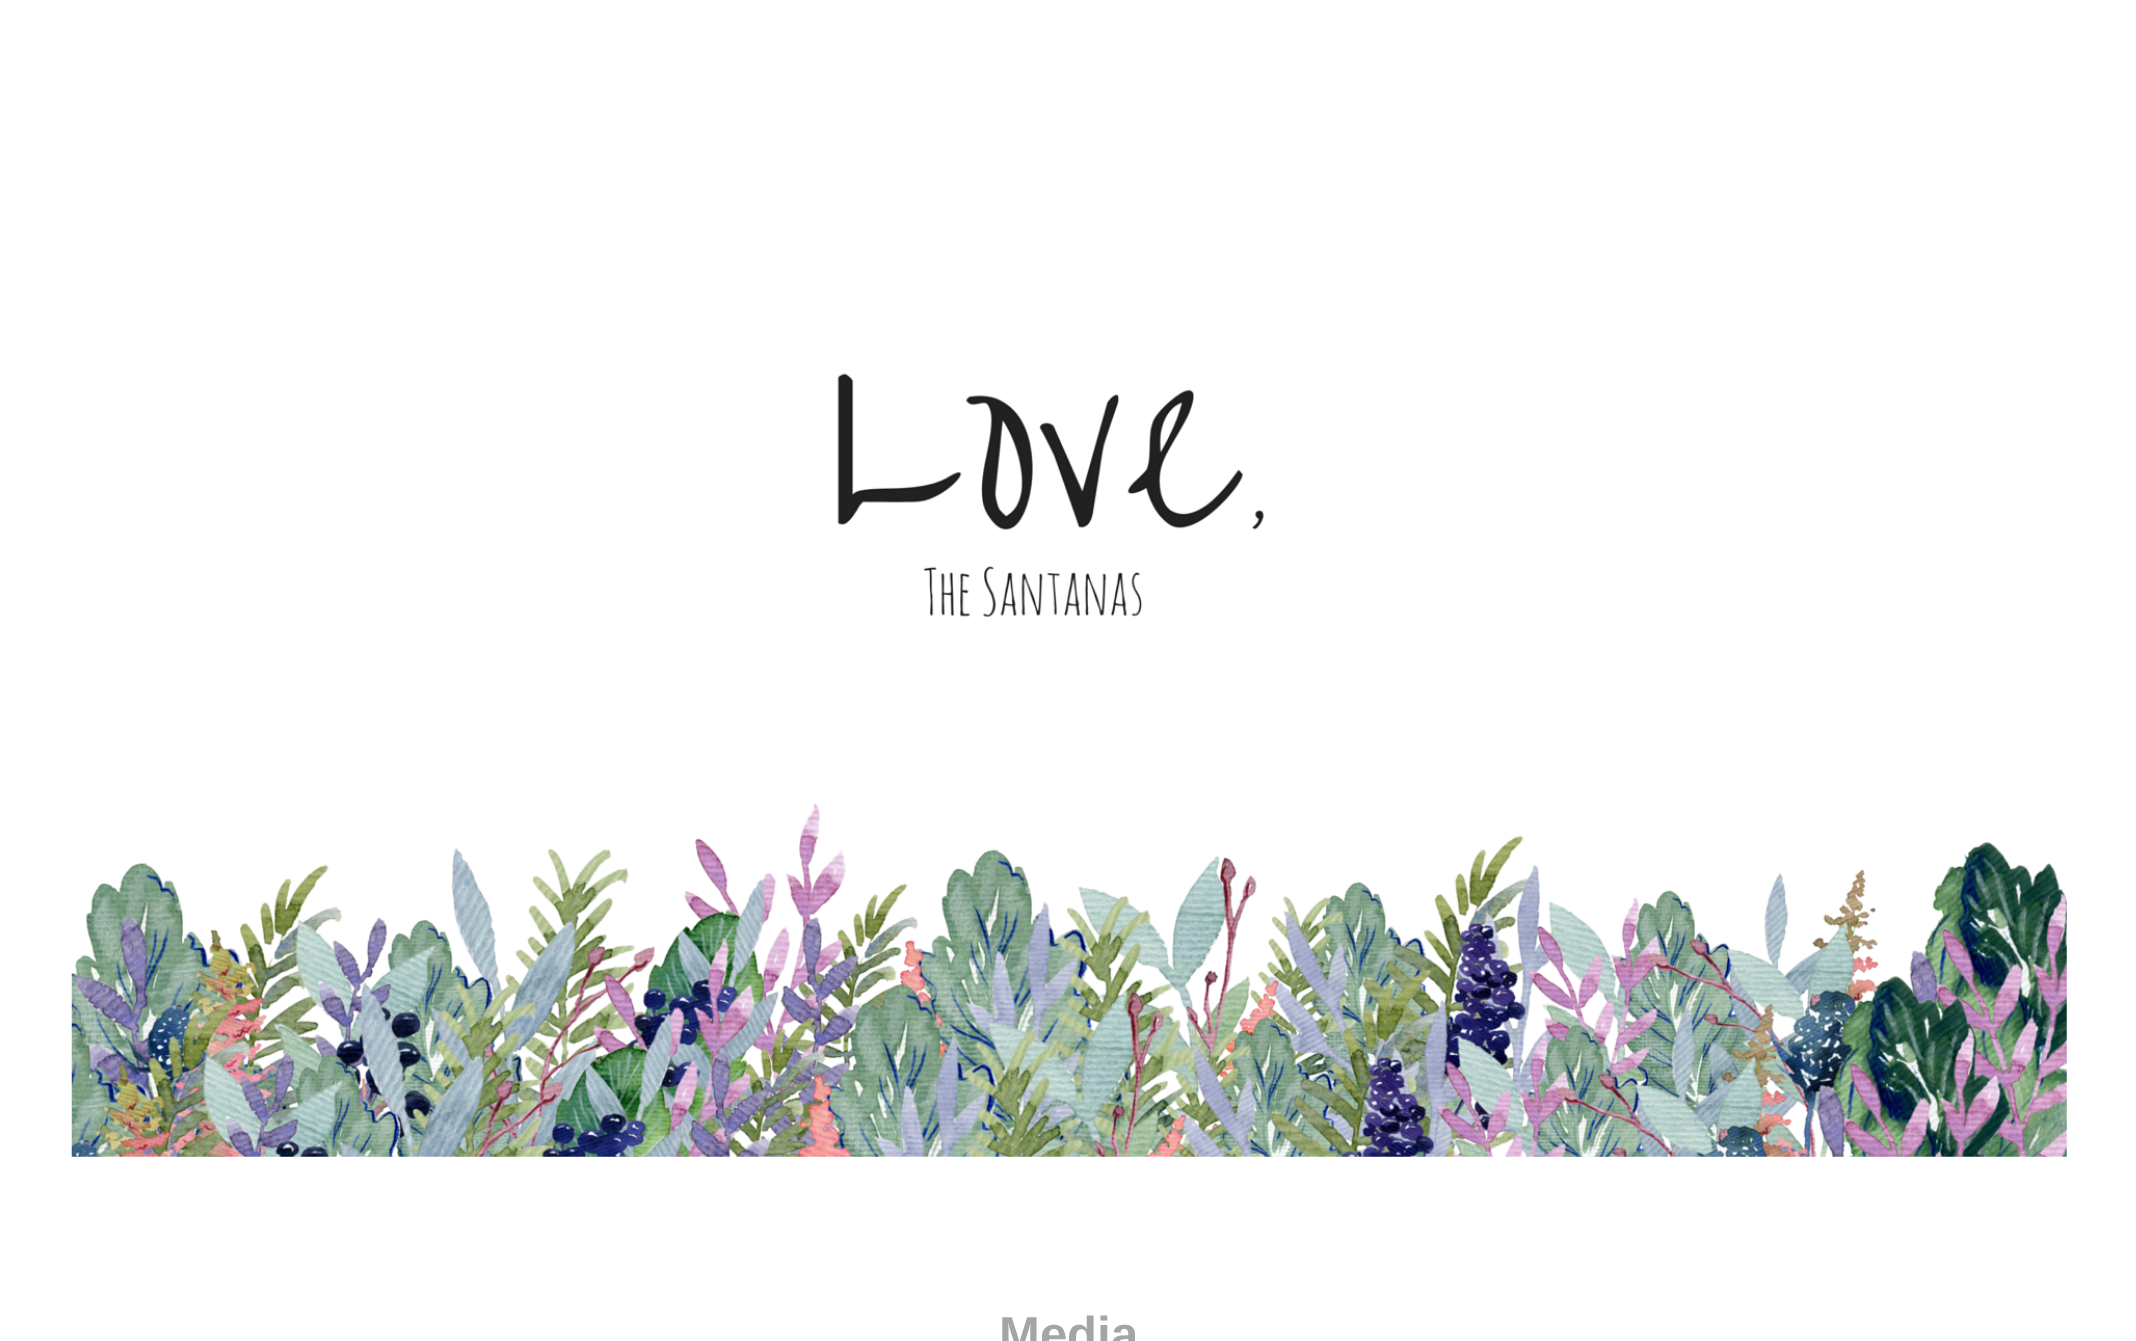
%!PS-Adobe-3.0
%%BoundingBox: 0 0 2136 1341
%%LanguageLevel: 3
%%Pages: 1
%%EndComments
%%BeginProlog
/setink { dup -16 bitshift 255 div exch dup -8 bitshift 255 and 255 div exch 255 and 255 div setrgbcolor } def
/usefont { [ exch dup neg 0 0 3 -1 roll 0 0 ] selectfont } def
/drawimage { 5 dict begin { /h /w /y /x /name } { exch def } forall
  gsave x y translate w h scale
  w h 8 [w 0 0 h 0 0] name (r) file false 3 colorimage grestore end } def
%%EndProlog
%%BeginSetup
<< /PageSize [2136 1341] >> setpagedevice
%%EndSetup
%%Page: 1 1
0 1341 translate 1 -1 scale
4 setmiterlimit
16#FFFFFF setink
0 0 2136 1341 rectfill
(img1.raw) 71 373 1996 784 drawimage
/LiberationSans-Bold 49 usefont
16#A5A5A5 setink
999 1351 moveto (Media) show
showpage
%%EOF
